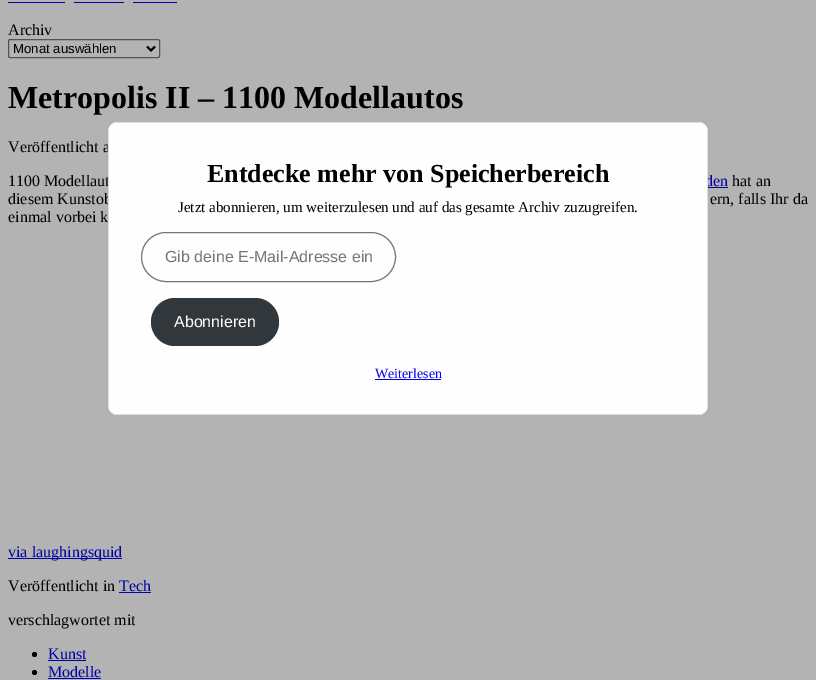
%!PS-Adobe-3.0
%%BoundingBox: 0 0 816 680
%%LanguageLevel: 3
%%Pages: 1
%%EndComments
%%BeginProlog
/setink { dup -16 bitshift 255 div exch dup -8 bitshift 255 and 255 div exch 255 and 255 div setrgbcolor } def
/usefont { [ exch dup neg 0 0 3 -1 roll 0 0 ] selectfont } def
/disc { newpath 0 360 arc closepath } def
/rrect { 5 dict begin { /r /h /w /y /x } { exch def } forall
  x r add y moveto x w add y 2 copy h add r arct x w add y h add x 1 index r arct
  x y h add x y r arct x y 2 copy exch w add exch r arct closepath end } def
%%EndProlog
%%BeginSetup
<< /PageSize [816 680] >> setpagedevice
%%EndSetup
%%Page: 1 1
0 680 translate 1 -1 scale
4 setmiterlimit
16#B3B3B3 setink
0 0 816 680 rectfill
[
    [8 2 57 1 16#0000A7]
    [74 2 50 1 16#0000A7]
    [133 2 44 1 16#0000A7]
] { aload pop setink rectfill } forall
/LiberationSerif-Regular 16 usefont
16#000000 setink
8 35 moveto (Archiv) show
16#535353 setink
8.5 39.5 151 18 1.5 rrect stroke
16#000000 setink
2 setlinewidth
147 46.5 moveto 151 50.5 lineto 155 46.5 lineto stroke
/LiberationSans-Regular 13.25 usefont
13 53 moveto (Monat auswählen) show
/LiberationSerif-Bold 32 usefont
8 108 moveto (Metropolis II – 1100 Modellautos) show
/LiberationSerif-Regular 16 usefont
8 152 moveto (Veröffentlicht a) show
8 186 moveto (1100 Modellaut) show
16#0000A7 setink
705 186 moveto (den) show
708 187 20 1 rectfill
16#000000 setink
[
    [(hat an) 732 186]
    [(diesem Kunstob) 8 204]
    [(ern, falls Ihr da) 710 204]
    [(einmal vorbei k) 8 222]
] { aload pop moveto show } forall
16#0000A7 setink
8 558 114 1 rectfill
8 557 moveto (via laughingsquid) show
16#000000 setink
8 591 moveto (Veröffentlicht in) show
16#0000A7 setink
119 591 moveto (Tech) show
119 592 32 1 rectfill
16#000000 setink
8 625 moveto (verschlagwortet mit) show
34.5 654.5 2.5 disc fill
16#0000A7 setink
48 659 moveto (Kunst) show
48 660 38 1 rectfill
16#000000 setink
34.5 672.5 2.5 disc fill
16#0000A7 setink
48 677 moveto (Modelle) show
48 678 53 1 rectfill
16#FEFEFE setink
108 122 600 293 10 rrect fill
16#DDDDDD setink
108 132 moveto 108 405 lineto 109 409 lineto 109 128 lineto closepath 118 122 moveto 114 123 lineto 702 123 lineto 698 122 lineto closepath 708 132 moveto 707 128 lineto 707 409 lineto 708 405 lineto closepath 698 415 moveto 702 414 lineto 114 414 lineto 118 415 lineto closepath eofill
/LiberationSerif-Bold 26 usefont
16#000000 setink
207 182 moveto (Entdecke mehr von Speicherbereich) show
/LiberationSerif-Regular 15 usefont
178 212 moveto (Jetzt abonnieren, um weiterzulesen und auf das gesamte Archiv zuzugreifen.) show
16#767676 setink
1 setlinewidth
141.5 232.5 254 49 24.5 rrect stroke
/LiberationSans-Regular 16 usefont
16#757575 setink
165 262 moveto (Gib deine E-Mail-Adresse ein) show
16#32373C setink
151 298 128 48 24 rrect fill
16#FFFFFF setink
174 327 moveto (Abonnieren) show
/LiberationSerif-Regular 14 usefont
16#0000EE setink
375 378 moveto (Weiterlesen) show
375 379 66 1 rectfill
showpage
%%EOF
